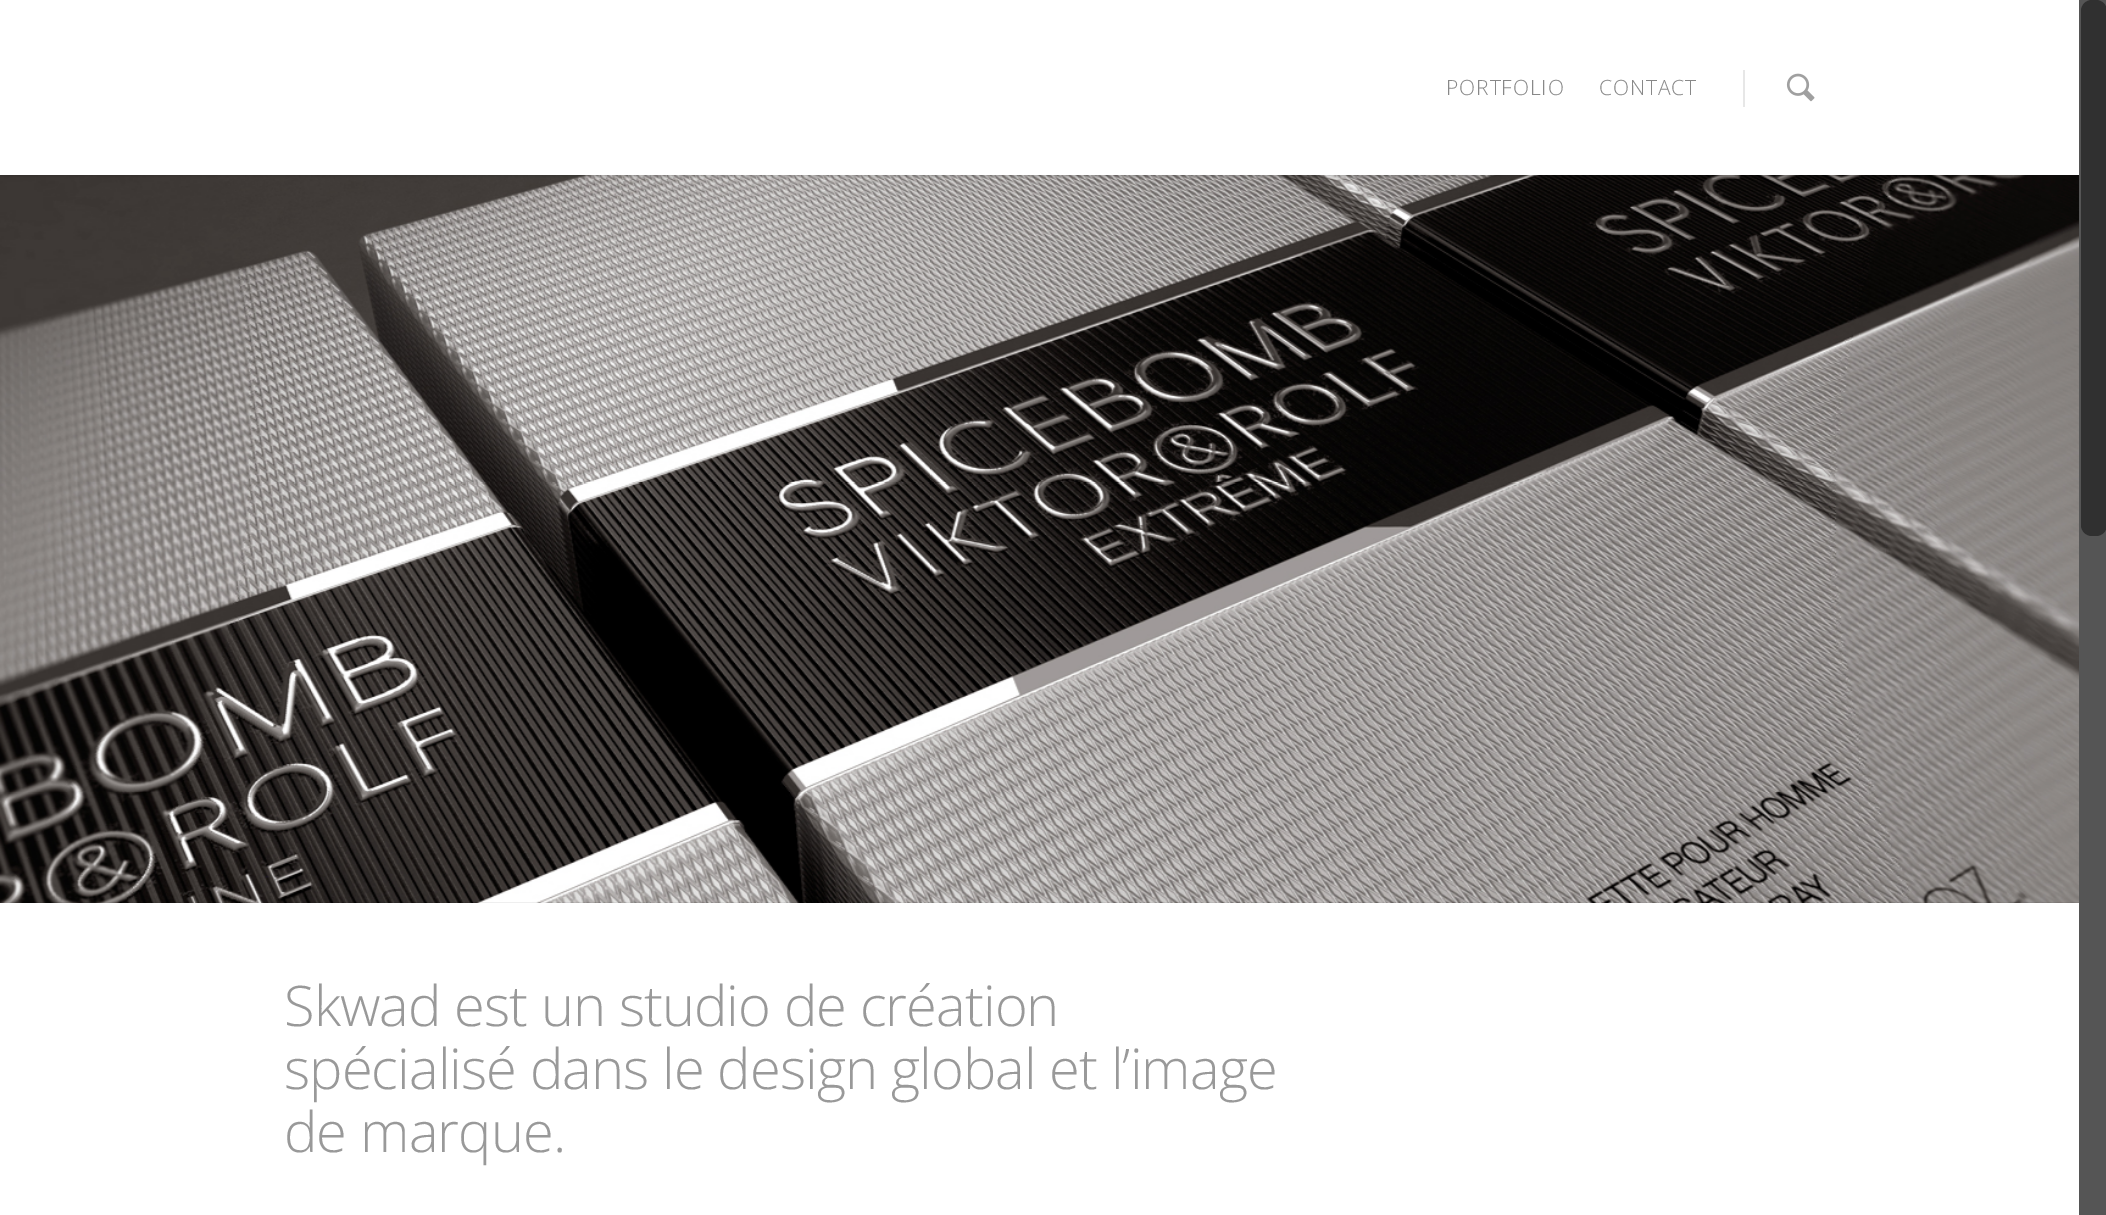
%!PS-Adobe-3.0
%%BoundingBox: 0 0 2106 1215
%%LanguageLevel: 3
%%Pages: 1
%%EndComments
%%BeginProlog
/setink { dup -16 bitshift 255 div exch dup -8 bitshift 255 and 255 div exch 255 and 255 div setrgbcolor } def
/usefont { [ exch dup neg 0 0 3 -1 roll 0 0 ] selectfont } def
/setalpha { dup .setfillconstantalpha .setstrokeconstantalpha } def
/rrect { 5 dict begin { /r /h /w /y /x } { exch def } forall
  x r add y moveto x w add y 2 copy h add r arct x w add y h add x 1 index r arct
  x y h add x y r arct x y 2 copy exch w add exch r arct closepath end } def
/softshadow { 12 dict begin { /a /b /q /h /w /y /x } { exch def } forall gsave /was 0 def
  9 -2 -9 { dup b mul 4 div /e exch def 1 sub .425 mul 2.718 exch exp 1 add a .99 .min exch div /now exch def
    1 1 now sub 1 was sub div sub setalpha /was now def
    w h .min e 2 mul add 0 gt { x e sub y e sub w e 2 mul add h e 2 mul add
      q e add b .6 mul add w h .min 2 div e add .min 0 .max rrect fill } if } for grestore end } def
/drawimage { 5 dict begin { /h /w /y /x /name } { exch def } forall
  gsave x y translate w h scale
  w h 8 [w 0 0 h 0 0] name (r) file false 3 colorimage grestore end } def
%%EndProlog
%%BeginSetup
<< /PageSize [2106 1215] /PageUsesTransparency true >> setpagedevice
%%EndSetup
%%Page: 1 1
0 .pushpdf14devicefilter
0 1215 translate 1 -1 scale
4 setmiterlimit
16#FFFFFF setink
0 0 2106 1215 rectfill
(img2.raw) 0 175 2079 728 drawimage
gsave
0 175 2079 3 rectclip
16#000000 setink
0 0 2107 175 0 2.5 0.22 softshadow
grestore
/OpenSans-Light 21 usefont
16#888888 setink
1446 95 moveto 0.9 0 (PORTFOLIO) ashow
1599 95 moveto 0.9 0 (CONTACT) ashow
16#E7E7E7 setink
1743 70 2 37 rectfill
(img1.raw) 1786 73 29 29 drawimage
16#555555 setink
2079 0 27 1215 rectfill
16#303030 setink
2081 0 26 536 11 rrect fill
/OpenSans-Light 56 usefont
16#999999 setink
284 1026 moveto -0.9 0 (Skwad est un studio de création) ashow
284 1089 moveto -0.9 0 (spécialisé dans le design global et l’image) ashow
284 1152 moveto -0.9 0 (de marque.) ashow
.poppdf14devicefilter showpage
%%EOF
